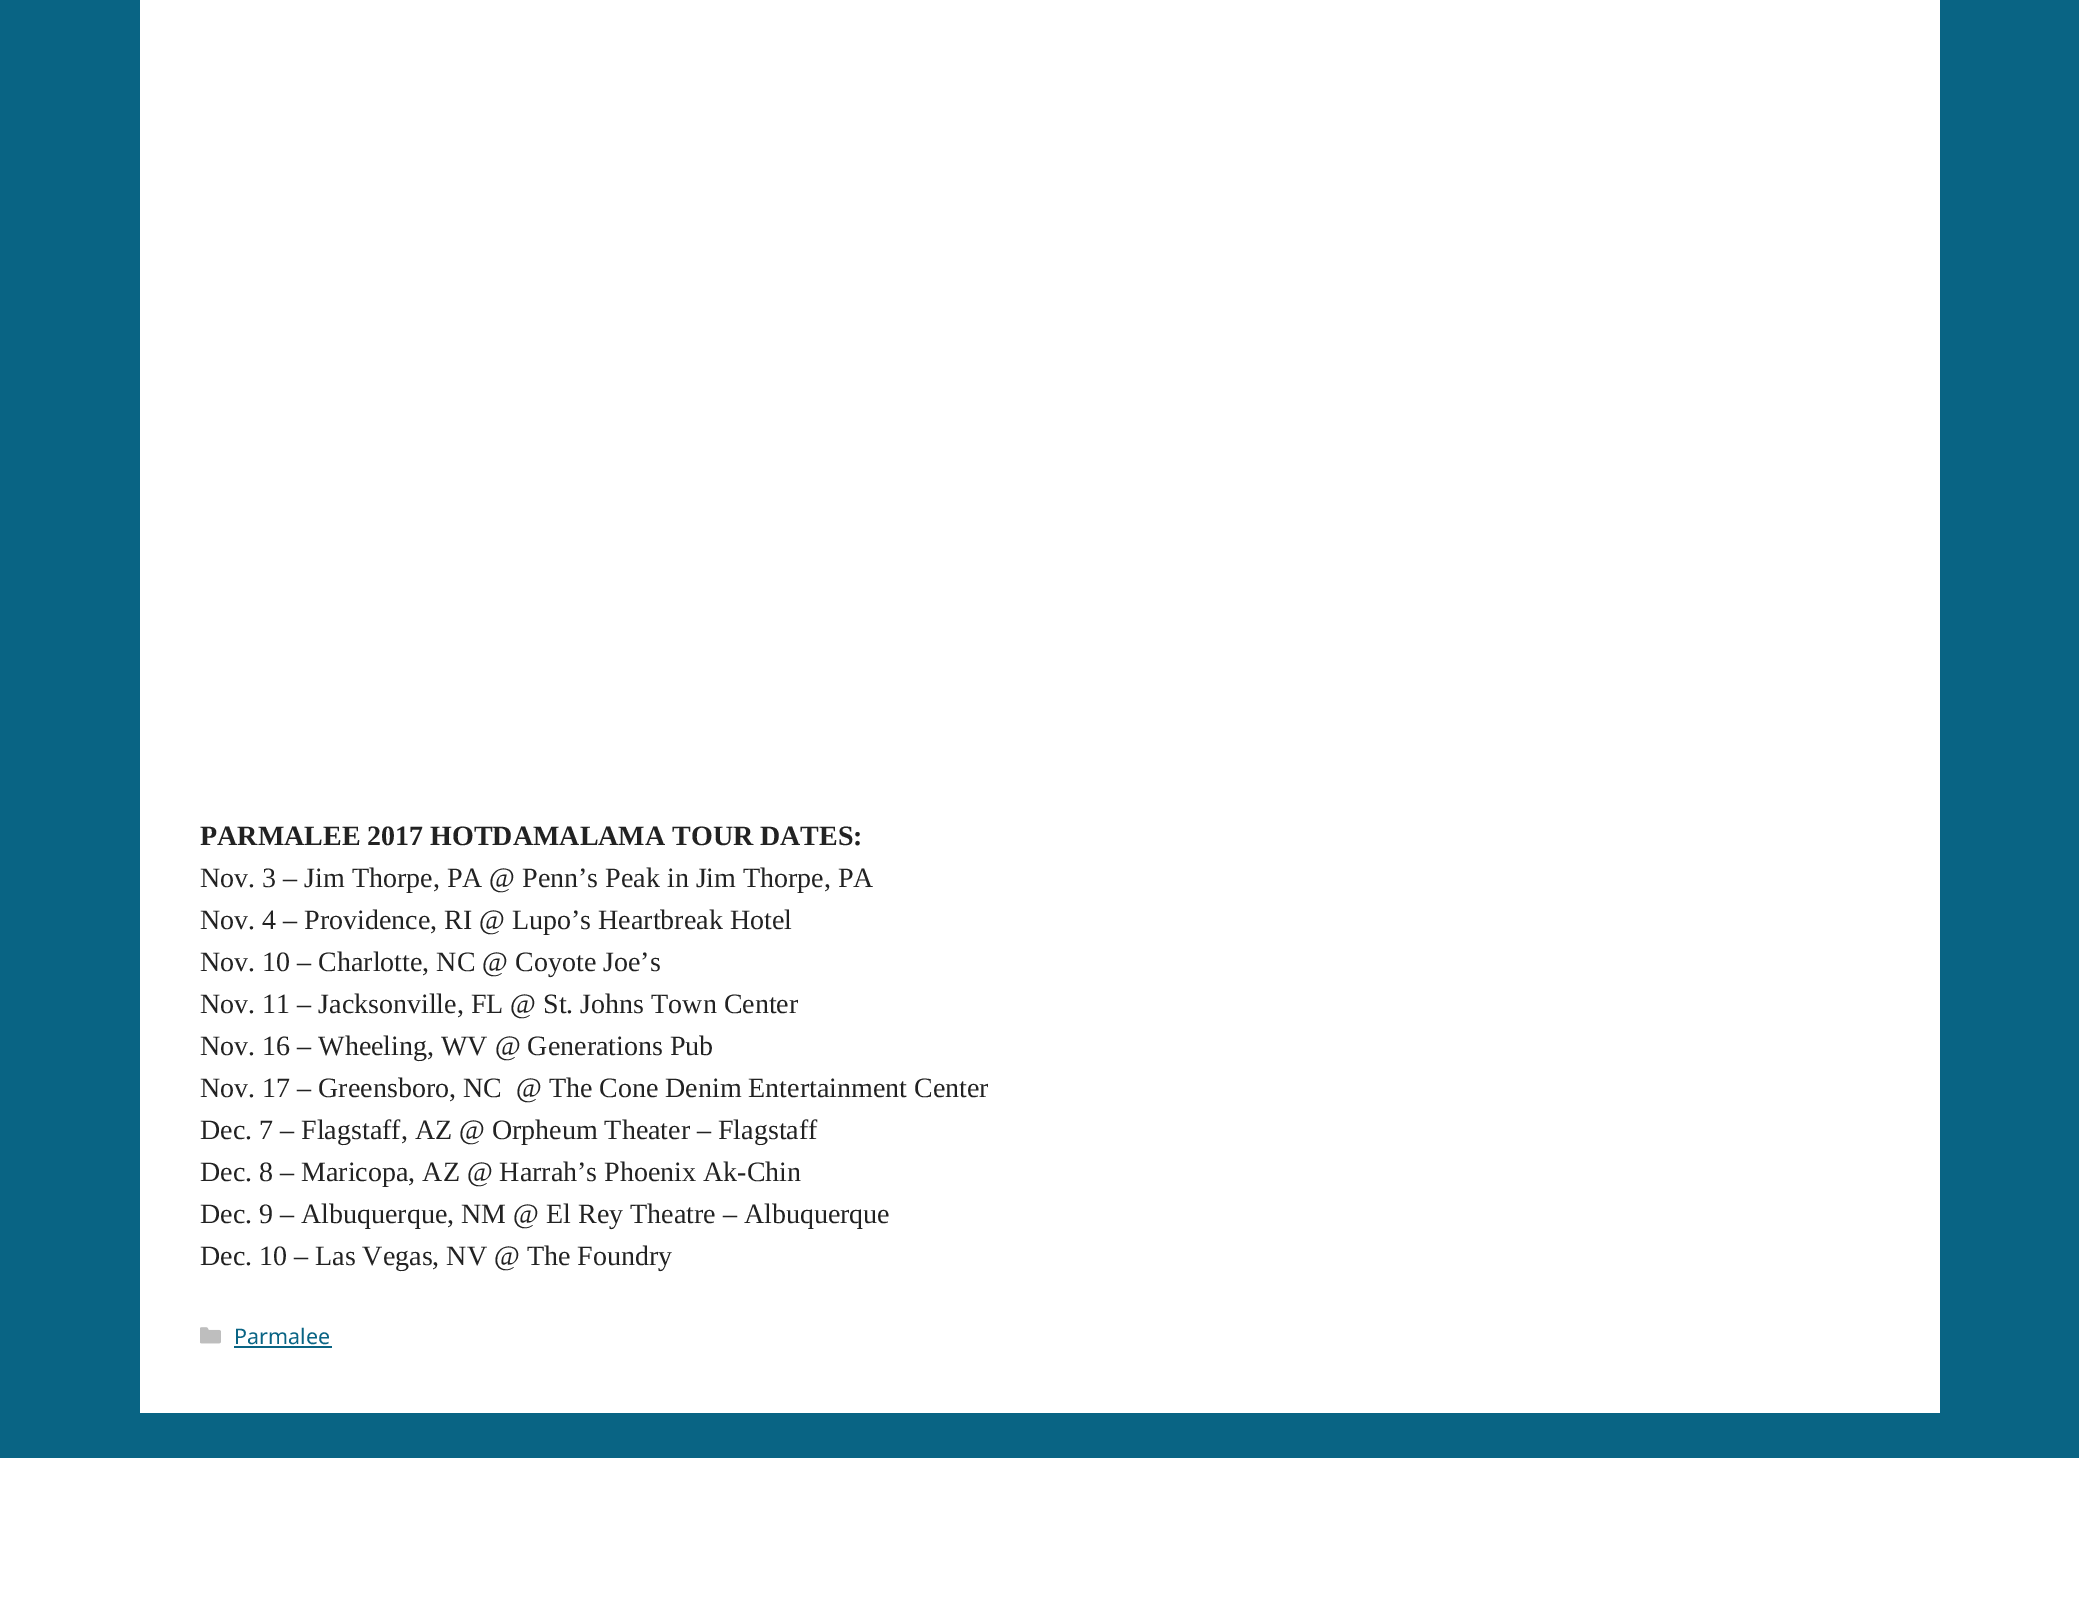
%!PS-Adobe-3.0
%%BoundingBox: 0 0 2079 1598
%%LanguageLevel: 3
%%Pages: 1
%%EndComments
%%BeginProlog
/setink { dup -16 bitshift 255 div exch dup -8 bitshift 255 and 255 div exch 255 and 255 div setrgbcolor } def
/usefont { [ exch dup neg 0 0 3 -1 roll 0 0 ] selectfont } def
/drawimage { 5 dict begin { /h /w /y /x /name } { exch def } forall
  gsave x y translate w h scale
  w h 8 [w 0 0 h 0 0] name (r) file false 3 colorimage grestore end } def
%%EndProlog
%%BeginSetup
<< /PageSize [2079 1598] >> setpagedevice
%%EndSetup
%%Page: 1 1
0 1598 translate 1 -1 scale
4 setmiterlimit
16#096484 setink
0 0 2079 1598 rectfill
16#FFFFFF setink
140 0 1800 1413 rectfill
/LiberationSerif-Bold 28 usefont
16#222222 setink
200 845 moveto (PARMALEE 2017 HOTDAMALAMA TOUR DATES:) show
/LiberationSerif-Regular 28 usefont
[
    [(Nov. 3 – Jim Thorpe, PA @ Penn’s Peak in Jim Thorpe, PA) 200 887]
    [(Nov. 4 – Providence, RI @ Lupo’s Heartbreak Hotel) 200 929]
    [(Nov. 10 – Charlotte, NC @ Coyote Joe’s) 200 971]
    [(Nov. 11 – Jacksonville, FL @ St. Johns Town Center) 200 1013]
    [(Nov. 16 – Wheeling, WV @ Generations Pub) 200 1055]
    [(Nov. 17 – Greensboro, NC  @ The Cone Denim Entertainment Center) 200 1097]
    [(Dec. 7 – Flagstaff, AZ @ Orpheum Theater – Flagstaff) 200 1139]
    [(Dec. 8 – Maricopa, AZ @ Harrah’s Phoenix Ak-Chin) 200 1181]
    [(Dec. 9 – Albuquerque, NM @ El Rey Theatre – Albuquerque) 200 1223]
    [(Dec. 10 – Las Vegas, NV @ The Foundry) 200 1265]
] { aload pop moveto show } forall
(img1.raw) 200 1327 21 17 drawimage
/NotoSans-Regular 21.5 usefont
16#096484 setink
234 1344 moveto (Parmalee) show
234 1346 98 2 rectfill
16#FFFFFF setink
0 1458 2079 140 rectfill
showpage
%%EOF
